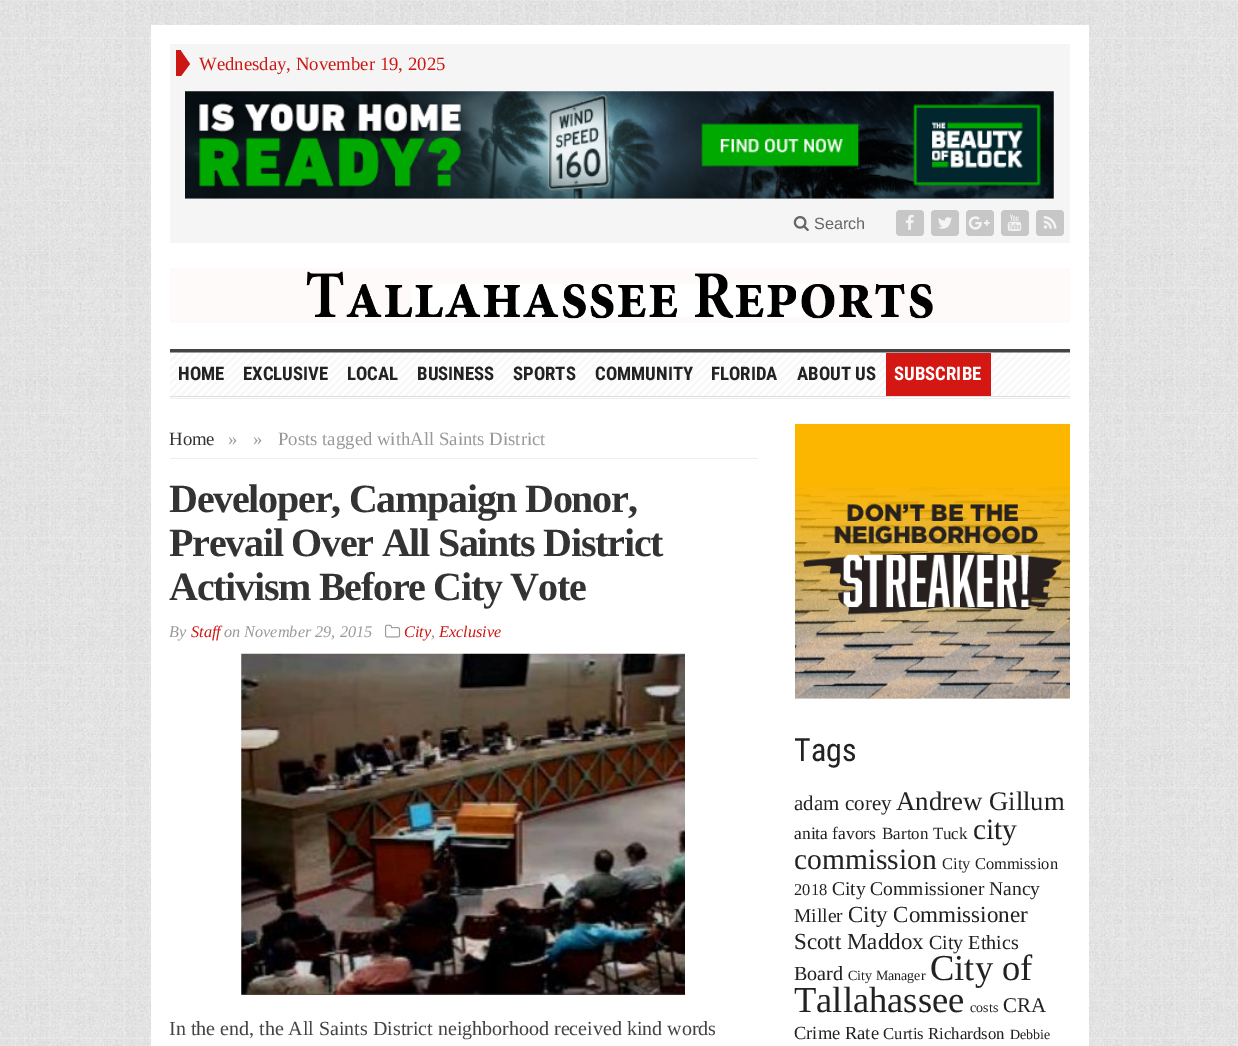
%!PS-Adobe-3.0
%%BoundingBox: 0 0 1238 1046
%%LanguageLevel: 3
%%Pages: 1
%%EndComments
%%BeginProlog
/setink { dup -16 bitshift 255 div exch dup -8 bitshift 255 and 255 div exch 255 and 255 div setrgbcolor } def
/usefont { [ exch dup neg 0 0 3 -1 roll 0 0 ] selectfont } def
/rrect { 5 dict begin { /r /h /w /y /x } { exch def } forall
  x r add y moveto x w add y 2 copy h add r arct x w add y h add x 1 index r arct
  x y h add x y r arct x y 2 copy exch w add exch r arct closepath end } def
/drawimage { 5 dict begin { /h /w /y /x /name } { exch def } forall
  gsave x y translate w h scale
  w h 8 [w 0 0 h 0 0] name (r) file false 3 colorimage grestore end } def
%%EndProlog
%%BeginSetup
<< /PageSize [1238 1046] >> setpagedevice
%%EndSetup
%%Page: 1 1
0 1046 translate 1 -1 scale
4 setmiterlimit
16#FFFFFF setink
0 0 1238 1046 rectfill
(img1.raw) 0 0 1238 1046 drawimage
[
    [151 25 938 1021 16#FFFFFF]
    [170 44 900 199 16#F5F5F5]
    [176 50 5 26 16#CD1713]
] { aload pop setink rectfill } forall
181 76 moveto 181 51 lineto 190 64 lineto closepath fill
/LiberationSerif-Regular 18.75 usefont
199 70 moveto (Wednesday, November 19, 2025) show
(img2.raw) 185 91 869 108 drawimage
(img3.raw) 793 216 16 15 drawimage
/LiberationSans-Regular 16.25 usefont
16#666666 setink
814 229 moveto (Search) show
16#C7C7C7 setink
896 210 28 26 4 rrect fill
(img4.raw) 905 214 9 16 drawimage
931 210 28 26 4 rrect fill
(img5.raw) 938 217 14 12 drawimage
966 210 28 26 4 rrect fill
(img6.raw) 968 216 22 14 drawimage
1001 210 28 26 4 rrect fill
(img7.raw) 1007 214 15 17 drawimage
1036 210 28 26 4 rrect fill
(img8.raw) 1043 216 14 13 drawimage
16#444444 setink
170 349 900 4 rectfill
(img9.raw) 170 268 900 55 drawimage
(img10.raw) 170 352 900 46 drawimage
16#DDDDDD setink
170 396 900 1 rectfill
/RobotoCondensed-Bold 18.75 usefont
16#222222 setink
[
    [(HOME) 178 380]
    [(EXCLUSIVE) 243 380]
    [(LOCAL) 347 380]
    [(BUSINESS) 417 380]
    [(SPORTS) 513 380]
    [(COMMUNITY) 595 380]
    [(FLORIDA) 711 380]
    [(ABOUT US) 797 380]
] { aload pop moveto show } forall
16#D41713 setink
886 353 105 43 rectfill
16#FFFFFF setink
894 380 moveto (SUBSCRIBE) show
16#EFEFEF setink
170 398 900 1 rectfill
170 458 588 1 rectfill
/LiberationSerif-Regular 18.75 usefont
16#333333 setink
169 445 moveto (Home) show
16#999999 setink
[
    [(») 228 445]
    [(») 253 445]
    [(Posts tagged withAll Saints District) 278 445]
] { aload pop moveto show } forall
/LiberationSerif-Bold 40 usefont
16#333333 setink
169 512 moveto -1.25 0 (Developer, Campaign Donor,) ashow
169 556 moveto -1.25 0 (Prevail Over All Saints District) ashow
169 600 moveto -1.25 0 (Activism Before City Vote) ashow
/LiberationSerif-Italic 16.25 usefont
16#999999 setink
169 637 moveto (By) show
16#CD1713 setink
191 637 moveto (Staff) show
16#999999 setink
224 637 moveto (on November 29, 2015) show
(img11.raw) 385 624 16 14 drawimage
16#CD1713 setink
404 637 moveto (City) show
16#999999 setink
431 637 moveto (,) show
16#CD1713 setink
439 637 moveto (Exclusive) show
(img12.raw) 241 653 444 342 drawimage
/LiberationSerif-Regular 20 usefont
16#444444 setink
169 1035 moveto (In the end, the All Saints District neighborhood received kind words) show
(img13.raw) 795 423 275 276 drawimage
/RobotoCondensed-Regular 32 usefont
16#222222 setink
794 761 moveto (Tags) show
/LiberationSerif-Regular 21 usefont
794 810 moveto (adam corey) show
/LiberationSerif-Regular 26.75 usefont
896 810 moveto (Andrew Gillum) show
/LiberationSerif-Regular 17.5 usefont
794 839 moveto (anita favors) show
/LiberationSerif-Regular 17 usefont
882 839 moveto (Barton Tuck) show
/LiberationSerif-Regular 29.5 usefont
973 839 moveto (city) show
794 869 moveto (commission) show
/LiberationSerif-Regular 16.5 usefont
942 869 moveto (City Commission) show
794 895 moveto (2018) show
/LiberationSerif-Regular 19.5 usefont
832 895 moveto (City Commissioner Nancy) show
794 922 moveto (Miller) show
/LiberationSerif-Regular 23 usefont
848 922 moveto (City Commissioner) show
794 949 moveto (Scott Maddox) show
/LiberationSerif-Regular 20 usefont
929 949 moveto (City Ethics) show
794 980 moveto (Board) show
/LiberationSerif-Regular 14 usefont
848 980 moveto (City Manager) show
/LiberationSerif-Regular 36.5 usefont
930 980 moveto (City of) show
794 1012 moveto (Tallahassee) show
/LiberationSerif-Regular 14 usefont
970 1012 moveto (costs) show
/LiberationSerif-Regular 21 usefont
1003 1012 moveto (CRA) show
/LiberationSerif-Regular 18.5 usefont
794 1039 moveto (Crime Rate) show
/LiberationSerif-Regular 16.75 usefont
883 1039 moveto (Curtis Richardson) show
/LiberationSerif-Regular 14 usefont
1010 1039 moveto (Debbie) show
showpage
%%EOF
